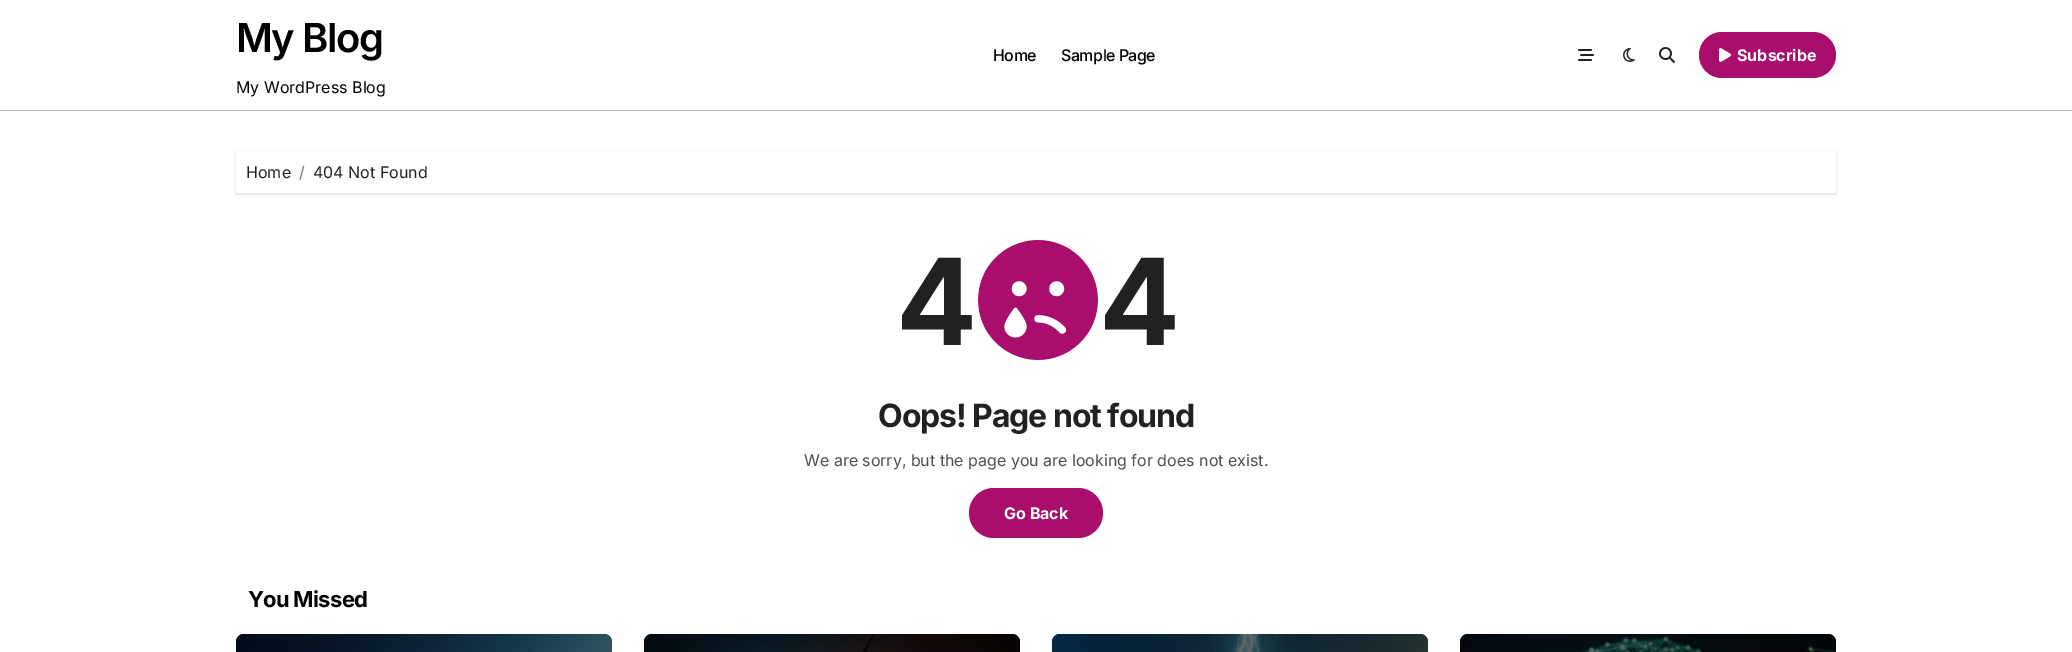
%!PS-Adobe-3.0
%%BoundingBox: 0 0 2072 652
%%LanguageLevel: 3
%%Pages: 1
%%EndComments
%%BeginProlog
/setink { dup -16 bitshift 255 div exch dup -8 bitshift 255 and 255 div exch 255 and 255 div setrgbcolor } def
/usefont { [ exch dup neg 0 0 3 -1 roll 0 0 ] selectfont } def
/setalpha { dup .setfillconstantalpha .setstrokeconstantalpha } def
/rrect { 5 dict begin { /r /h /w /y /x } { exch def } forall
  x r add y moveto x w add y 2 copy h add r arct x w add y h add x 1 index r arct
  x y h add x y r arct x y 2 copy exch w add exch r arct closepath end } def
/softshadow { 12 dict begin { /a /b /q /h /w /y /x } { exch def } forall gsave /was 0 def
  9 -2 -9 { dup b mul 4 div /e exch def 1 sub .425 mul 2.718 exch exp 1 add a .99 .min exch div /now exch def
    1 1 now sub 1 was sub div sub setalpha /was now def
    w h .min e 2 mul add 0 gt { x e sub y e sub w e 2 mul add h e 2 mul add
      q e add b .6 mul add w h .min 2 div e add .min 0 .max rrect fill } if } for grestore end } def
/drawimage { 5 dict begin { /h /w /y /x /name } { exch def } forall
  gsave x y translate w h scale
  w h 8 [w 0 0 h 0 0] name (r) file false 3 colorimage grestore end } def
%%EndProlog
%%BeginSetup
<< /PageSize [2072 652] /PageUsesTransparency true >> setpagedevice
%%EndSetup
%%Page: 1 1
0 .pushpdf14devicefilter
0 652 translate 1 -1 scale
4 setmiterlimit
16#FFFFFF setink
0 0 2072 652 rectfill
16#BBBBBB setink
0 110 2072 1 rectfill
/Inter-SemiBold 40 usefont
16#000000 setink
236 52 moveto -1.5 0 (My Blog) ashow
/Inter-Regular 16 usefont
236 93 moveto (My WordPress Blog) show
/Inter-Medium 16 usefont
993 61 moveto -0.5 0 (Home) ashow
1061 61 moveto -0.5 0 (Sample Page) ashow
(img1.raw) 1578 49 16 12 drawimage
(img2.raw) 1623 48 12 14 drawimage
(img3.raw) 1659 47 16 16 drawimage
16#A90E6D setink
1699 32 137 46 23 rrect fill
(img4.raw) 1719 48 12 14 drawimage
/Inter-Bold 16 usefont
16#FFFFFF setink
1737 61 moveto (Subscribe) show
gsave
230 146 moveto 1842 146 lineto 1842 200 lineto 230 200 lineto closepath 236 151 moveto 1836 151 lineto 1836 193 lineto 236 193 lineto closepath eoclip newpath
16#000000 setink
236 152 1600 42 0 1.5 0.15 softshadow
grestore
/Inter-Regular 16 usefont
16#212121 setink
246 178 moveto (Home) show
16#6C757D setink
299 178 moveto (/) show
16#212121 setink
313 178 moveto (404 Not Found) show
/Inter-Bold 120 usefont
896 345 moveto -4 0 (4) ashow
(img5.raw) 978 240 120 120 drawimage
1099 345 moveto -4 0 (4) ashow
/Inter-Bold 32 usefont
878 427 moveto -1.1 0 (Oops! Page not found) ashow
/Inter-Regular 16 usefont
16#4C4C4C setink
804 466 moveto (We are sorry, but the page you are looking for does not exist.) show
16#A90E6D setink
969 488 134 50 25 rrect fill
/Inter-Bold 16 usefont
16#FFFFFF setink
1004 519 moveto (Go Back) show
/Inter-Bold 22 usefont
16#000000 setink
248 607 moveto -0.75 0 (You Missed) ashow
(img6.raw) 236 634 376 18 drawimage
0.6 setalpha
236 634 376 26 8 rrect fill
1 setalpha
(img7.raw) 644 634 376 18 drawimage
0.6 setalpha
644 634 376 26 8 rrect fill
1 setalpha
(img8.raw) 1052 634 376 18 drawimage
0.6 setalpha
1052 634 376 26 8 rrect fill
1 setalpha
(img9.raw) 1460 634 376 18 drawimage
0.6 setalpha
1460 634 376 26 8 rrect fill
.poppdf14devicefilter showpage
%%EOF
